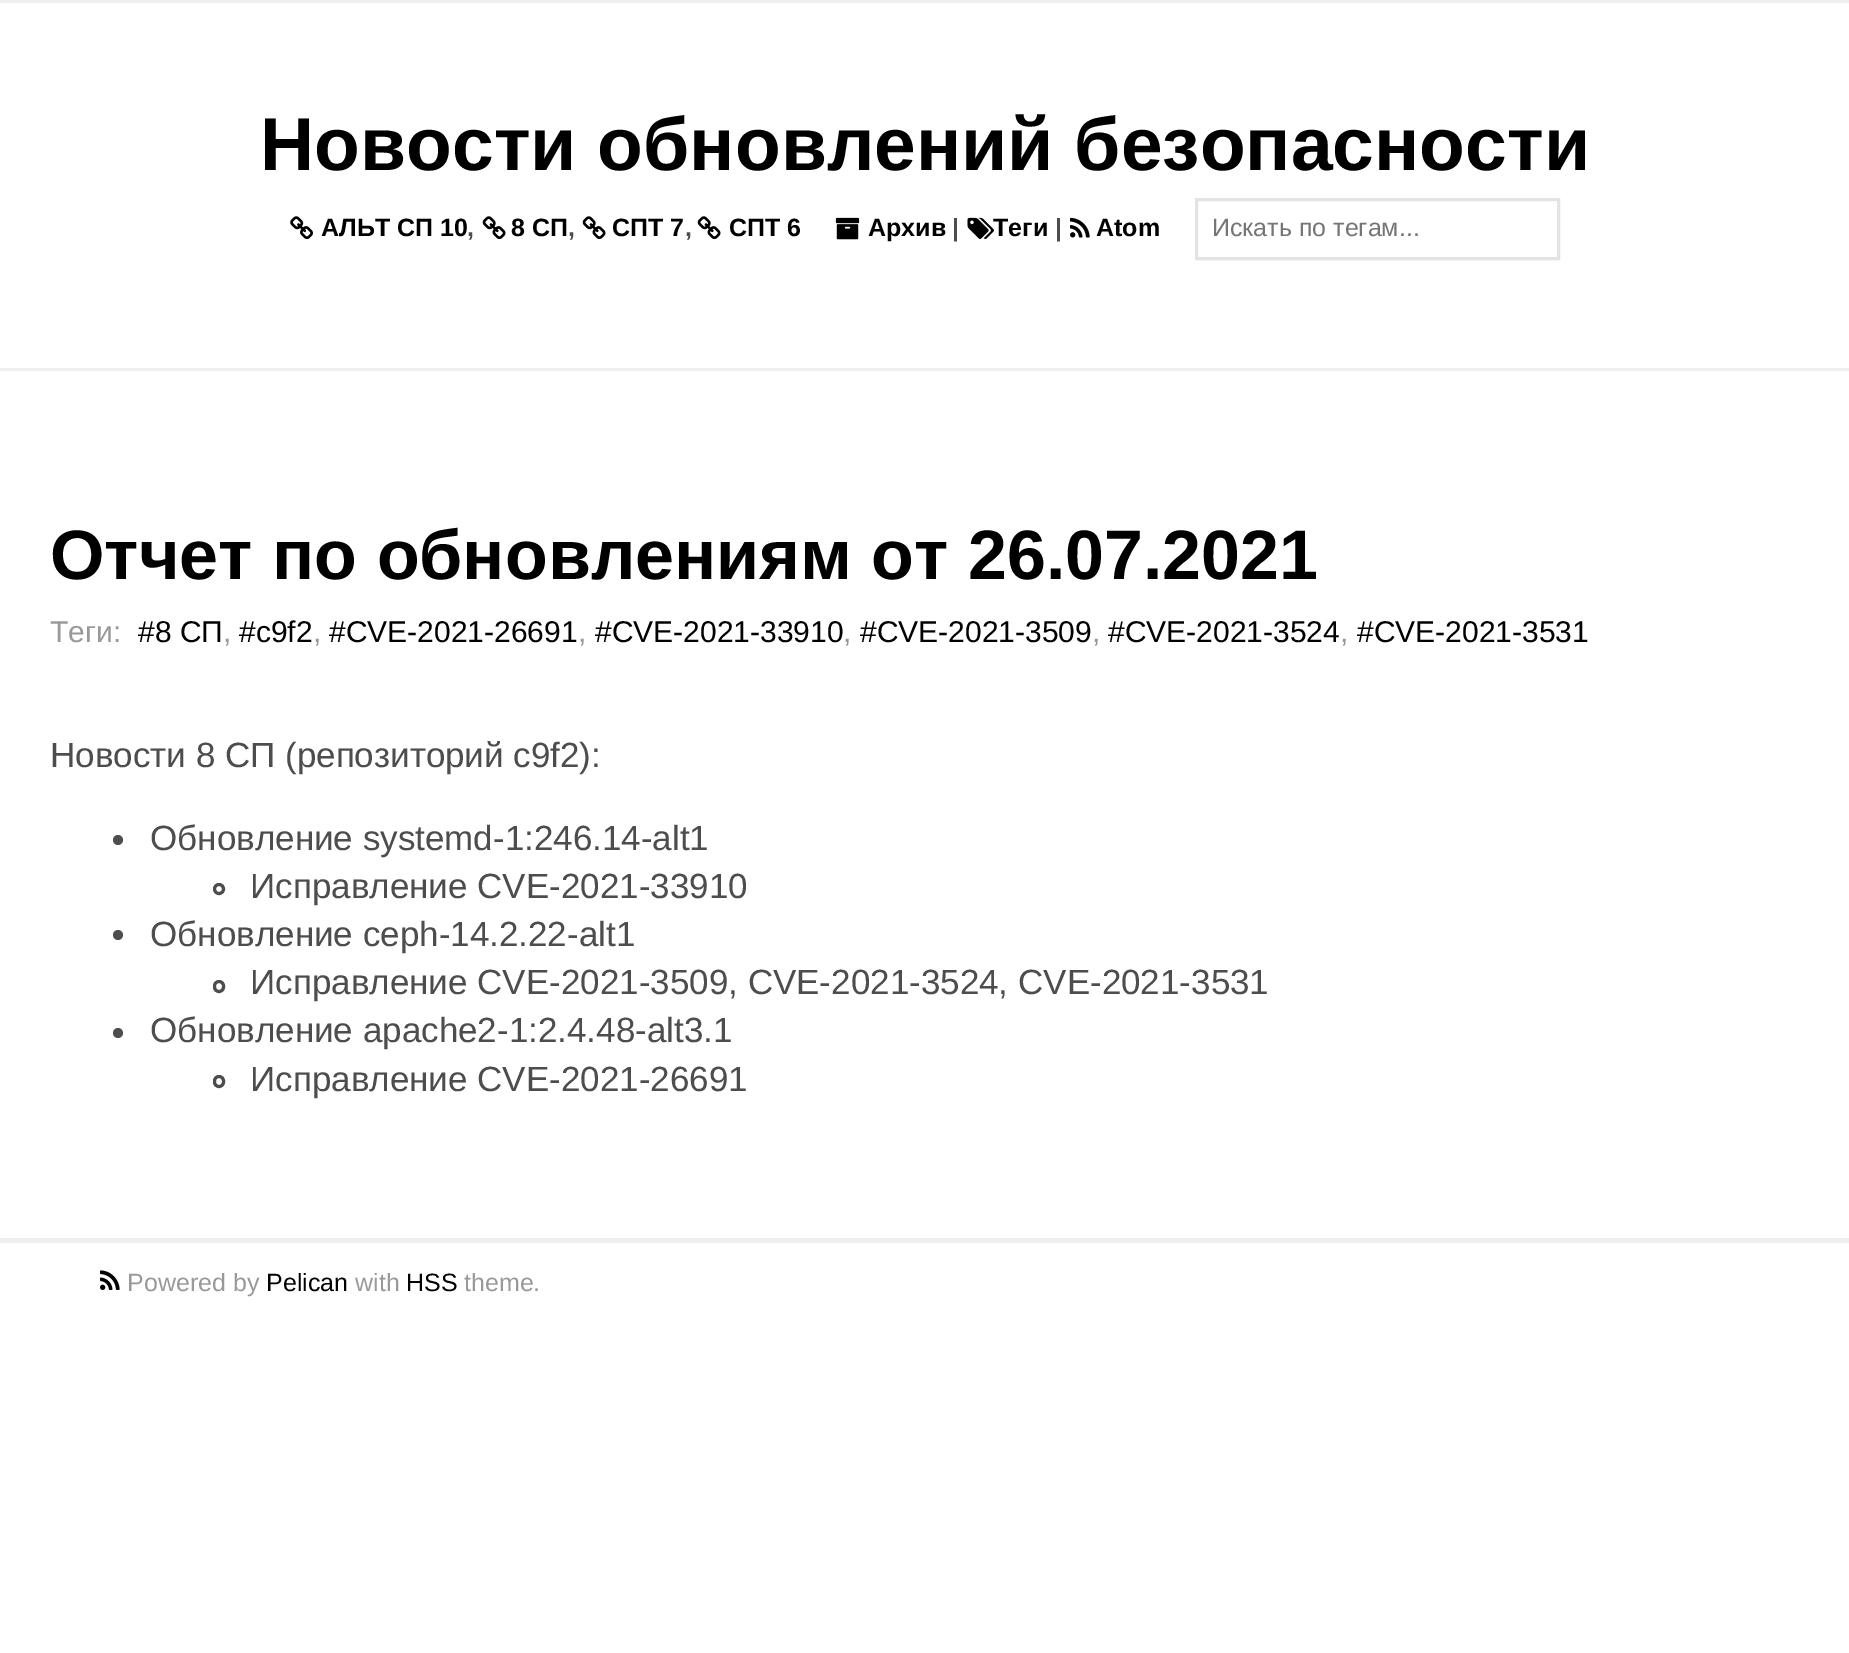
%!PS-Adobe-3.0
%%BoundingBox: 0 0 1849 1653
%%LanguageLevel: 3
%%Pages: 1
%%EndComments
%%BeginProlog
/setink { dup -16 bitshift 255 div exch dup -8 bitshift 255 and 255 div exch 255 and 255 div setrgbcolor } def
/usefont { [ exch dup neg 0 0 3 -1 roll 0 0 ] selectfont } def
/disc { newpath 0 360 arc closepath } def
/rrect { 5 dict begin { /r /h /w /y /x } { exch def } forall
  x r add y moveto x w add y 2 copy h add r arct x w add y h add x 1 index r arct
  x y h add x y r arct x y 2 copy exch w add exch r arct closepath end } def
/drawimage { 5 dict begin { /h /w /y /x /name } { exch def } forall
  gsave x y translate w h scale
  w h 8 [w 0 0 h 0 0] name (r) file false 3 colorimage grestore end } def
%%EndProlog
%%BeginSetup
<< /PageSize [1849 1653] >> setpagedevice
%%EndSetup
%%Page: 1 1
0 1653 translate 1 -1 scale
4 setmiterlimit
16#FFFFFF setink
0 0 1849 1653 rectfill
16#EEEEEE setink
0 0 1849 3 rectfill
0 368 1849 3 rectfill
/LiberationSans-Bold 75 usefont
16#000000 setink
260 170 moveto (Новости обновлений безопасности) show
(img1.raw) 290 216 23 24 drawimage
/LiberationSans-Bold 25 usefont
321 236 moveto (АЛЬТ СП 10) show
16#4D4D4D setink
467 236 moveto (,) show
(img2.raw) 482 216 24 24 drawimage
16#000000 setink
511 236 moveto (8 СП) show
16#4D4D4D setink
568 236 moveto (,) show
(img2.raw) 582 216 24 24 drawimage
16#000000 setink
612 236 moveto (СПТ 7) show
16#4D4D4D setink
685 236 moveto (,) show
(img2.raw) 697 216 24 24 drawimage
16#000000 setink
729 236 moveto (СПТ 6) show
(img3.raw) 835 217 25 23 drawimage
868 236 moveto (Архив) show
16#4D4D4D setink
952 236 moveto (|) show
(img4.raw) 967 217 27 22 drawimage
16#000000 setink
993 236 moveto (Теги) show
16#4D4D4D setink
1055 236 moveto (|) show
(img5.raw) 1070 217 20 21 drawimage
16#000000 setink
1096 236 moveto (Atom) show
16#E3E3E3 setink
3 setlinewidth
1196.5 199.5 362 59 rectstroke
/LiberationSans-Regular 25 usefont
16#757575 setink
1212 236 moveto (Искать по тегам...) show
/LiberationSans-Bold 70 usefont
16#000000 setink
50 579 moveto (Отчет по обновлениям от 26.07.2021) show
/LiberationSans-Regular 30 usefont
16#999999 setink
50 642 moveto (Теги:) show
16#000000 setink
138 642 moveto (#8 СП) show
16#999999 setink
223 642 moveto (,) show
16#000000 setink
239 642 moveto (#c9f2) show
16#999999 setink
313 642 moveto (,) show
16#000000 setink
329 642 moveto (#CVE-2021-26691) show
16#999999 setink
578 642 moveto (,) show
16#000000 setink
595 642 moveto (#CVE-2021-33910) show
16#999999 setink
843 642 moveto (,) show
16#000000 setink
860 642 moveto (#CVE-2021-3509) show
16#999999 setink
1092 642 moveto (,) show
16#000000 setink
1108 642 moveto (#CVE-2021-3524) show
16#999999 setink
1340 642 moveto (,) show
16#000000 setink
1357 642 moveto (#CVE-2021-3531) show
/LiberationSans-Regular 35 usefont
16#4D4D4D setink
50 767 moveto (Новости 8 СП \(репозиторий c9f2\):) show
118 840 5 disc fill
150 850 moveto (Обновление systemd-1:246.14-alt1) show
219 889 4.5 disc stroke
250 898 moveto (Исправление CVE-2021-33910) show
118 935 5 disc fill
150 946 moveto (Обновление ceph-14.2.22-alt1) show
214.5 981.5 9 10 4.5 rrect stroke
250 994 moveto (Исправление CVE-2021-3509, CVE-2021-3524, CVE-2021-3531) show
118 1033 5 disc fill
150 1042 moveto (Обновление apache2-1:2.4.48-alt3.1) show
214.5 1076.5 9 10 4.5 rrect stroke
250 1091 moveto (Исправление CVE-2021-26691) show
16#EEEEEE setink
0 1238 1849 5 rectfill
(img6.raw) 100 1270 20 20 drawimage
/LiberationSans-Regular 25 usefont
16#999999 setink
127 1291 moveto (Powered by) show
16#000000 setink
266 1291 moveto (Pelican) show
16#999999 setink
355 1291 moveto (with) show
16#000000 setink
406 1291 moveto (HSS) show
16#999999 setink
464 1291 moveto (theme.) show
showpage
%%EOF
